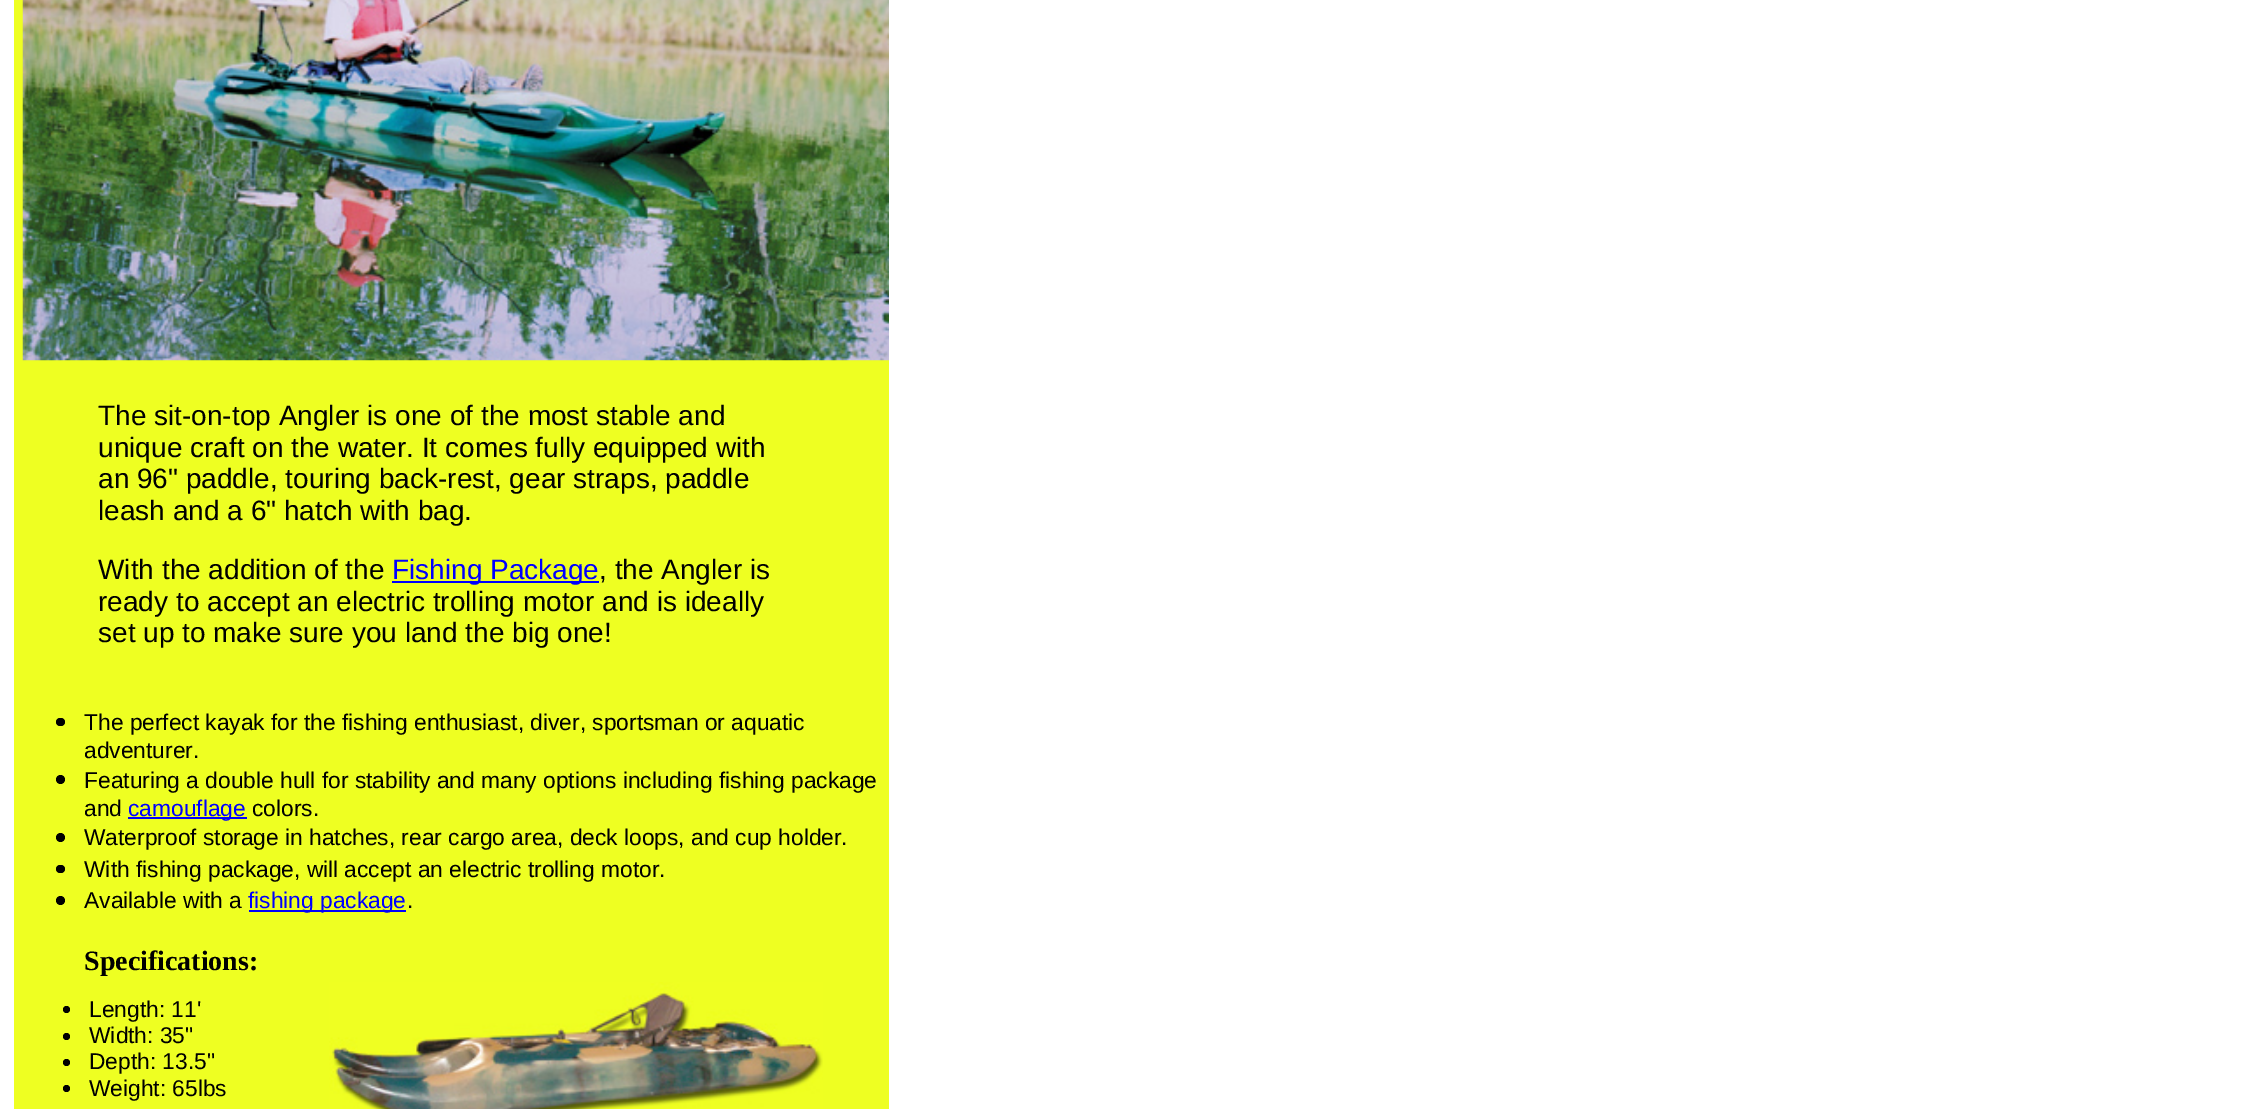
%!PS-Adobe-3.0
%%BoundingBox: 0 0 2245 1109
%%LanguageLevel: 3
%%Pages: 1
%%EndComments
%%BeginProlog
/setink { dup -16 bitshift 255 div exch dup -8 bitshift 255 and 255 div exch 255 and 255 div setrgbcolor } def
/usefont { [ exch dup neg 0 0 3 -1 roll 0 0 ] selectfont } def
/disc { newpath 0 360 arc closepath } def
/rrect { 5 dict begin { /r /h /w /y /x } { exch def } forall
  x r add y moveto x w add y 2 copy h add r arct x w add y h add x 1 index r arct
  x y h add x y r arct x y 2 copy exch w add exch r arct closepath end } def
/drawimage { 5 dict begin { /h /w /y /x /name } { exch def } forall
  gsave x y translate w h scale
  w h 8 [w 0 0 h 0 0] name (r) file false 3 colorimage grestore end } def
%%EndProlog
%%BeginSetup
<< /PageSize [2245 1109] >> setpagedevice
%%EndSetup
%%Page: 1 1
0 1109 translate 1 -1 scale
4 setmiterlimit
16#FFFFFF setink
0 0 2245 1109 rectfill
16#EEFF22 setink
14 0 875 401 rectfill
(img1.raw) 22 0 867 361 drawimage
14 401 875 708 rectfill
/LiberationSans-Regular 28 usefont
16#000000 setink
[
    [(The sit-on-top Angler is one of the most stable and) 98 425]
    [(unique craft on the water. It comes fully equipped with) 98 457]
    [(an 96" paddle, touring back-rest, gear straps, paddle) 98 488]
    [(leash and a 6" hatch with bag.) 98 520]
    [(With the addition of the) 98 579]
] { aload pop moveto show } forall
16#0000FF setink
392 581 207 2 rectfill
392 579 moveto (Fishing Package) show
16#000000 setink
[
    [(, the Angler is) 599 579]
    [(ready to accept an electric trolling motor and is ideally) 98 611]
    [(set up to make sure you land the big one!) 98 642]
] { aload pop moveto show } forall
56 718 9 8 4 rrect fill
/LiberationSans-Regular 22.75 usefont
84 730 moveto (The perfect kayak for the fishing enthusiast, diver, sportsman or aquatic) show
84 758 moveto (adventurer.) show
60.5 779.5 4.5 disc fill
84 788 moveto (Featuring a double hull for stability and many options including fishing package) show
84 816 moveto (and) show
16#0000FF setink
128 817 119 2 rectfill
128 816 moveto (camouflage) show
16#000000 setink
252 816 moveto (colors.) show
60.5 837.5 4.5 disc fill
84 845 moveto (Waterproof storage in hatches, rear cargo area, deck loops, and cup holder.) show
56 865 9 8 4 rrect fill
84 877 moveto (With fishing package, will accept an electric trolling motor.) show
60.5 900.5 4.5 disc fill
84 908 moveto (Available with a) show
16#0000FF setink
249 910 157 2 rectfill
248 908 moveto (fishing package) show
16#000000 setink
407 908 moveto (.) show
/LiberationSerif-Bold 28 usefont
84 970 moveto (Specifications:) show
66.5 1009.5 3.5 disc fill
/LiberationSans-Regular 22.75 usefont
89 1017 moveto (Length: 11') show
66.5 1036.5 3.5 disc fill
89 1043 moveto (Width: 35") show
66.5 1062.5 3.5 disc fill
89 1069 moveto (Depth: 13.5") show
66.5 1088.5 3.5 disc fill
89 1096 moveto (Weight: 65lbs) show
(img2.raw) 329 982 494 127 drawimage
showpage
%%EOF
